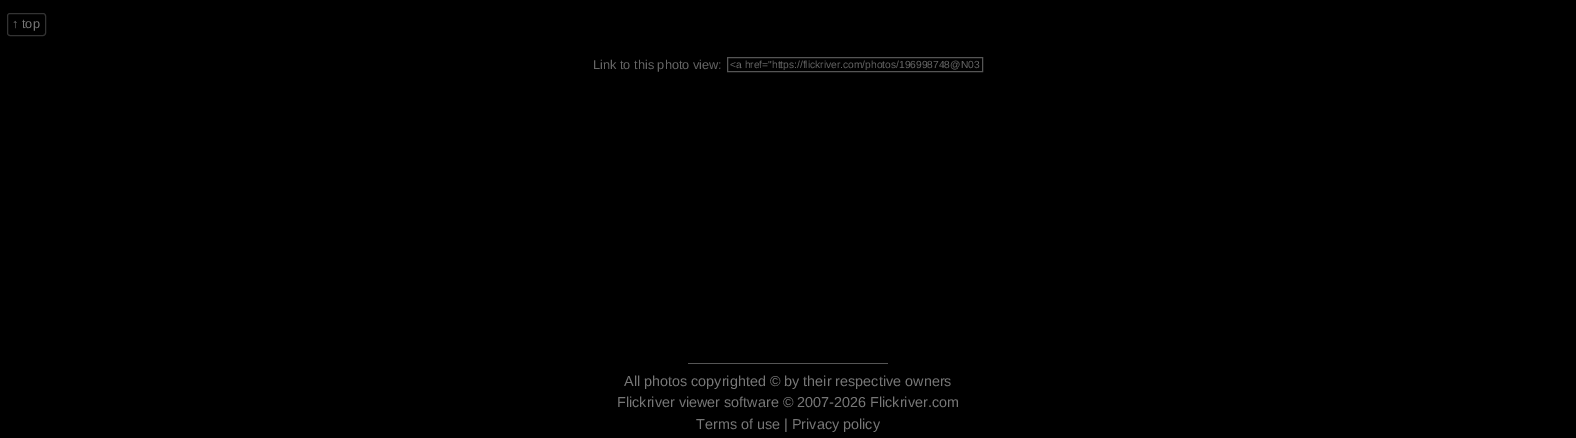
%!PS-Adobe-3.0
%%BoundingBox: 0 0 1576 438
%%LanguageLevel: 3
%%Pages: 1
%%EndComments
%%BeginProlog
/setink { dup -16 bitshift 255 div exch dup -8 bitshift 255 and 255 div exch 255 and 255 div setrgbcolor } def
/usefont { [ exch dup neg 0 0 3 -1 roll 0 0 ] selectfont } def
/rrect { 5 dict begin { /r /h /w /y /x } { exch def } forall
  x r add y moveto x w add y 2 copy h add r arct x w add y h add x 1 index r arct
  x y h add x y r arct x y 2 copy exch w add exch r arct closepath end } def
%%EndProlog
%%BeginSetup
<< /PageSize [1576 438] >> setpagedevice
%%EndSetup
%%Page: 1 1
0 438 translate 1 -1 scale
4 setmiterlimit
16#000000 setink
0 0 1576 438 rectfill
16#333333 setink
7.5 13.5 38 22 2.5 rrect stroke
/LiberationSans-Regular 12.75 usefont
16#777777 setink
12 28 moveto (↑ top) show
16#666666 setink
593 69 moveto (Link to this photo view:) show
16#555555 setink
727.5 57.5 255 14 rectstroke
/LiberationSans-Regular 10.25 usefont
16#666666 setink
730 68 moveto (<a href="https://flickriver.com/photos/196998748@N03) show
16#555555 setink
688 363 200 1 rectfill
/LiberationSans-Regular 14.4 usefont
16#777777 setink
[
    [(All photos copyrighted © by their respective owners) 624 386]
    [(Flickriver viewer software © 2007-2026 Flickriver.com) 617 407]
    [(Terms of use | Privacy policy) 696 429]
] { aload pop moveto show } forall
showpage
%%EOF
